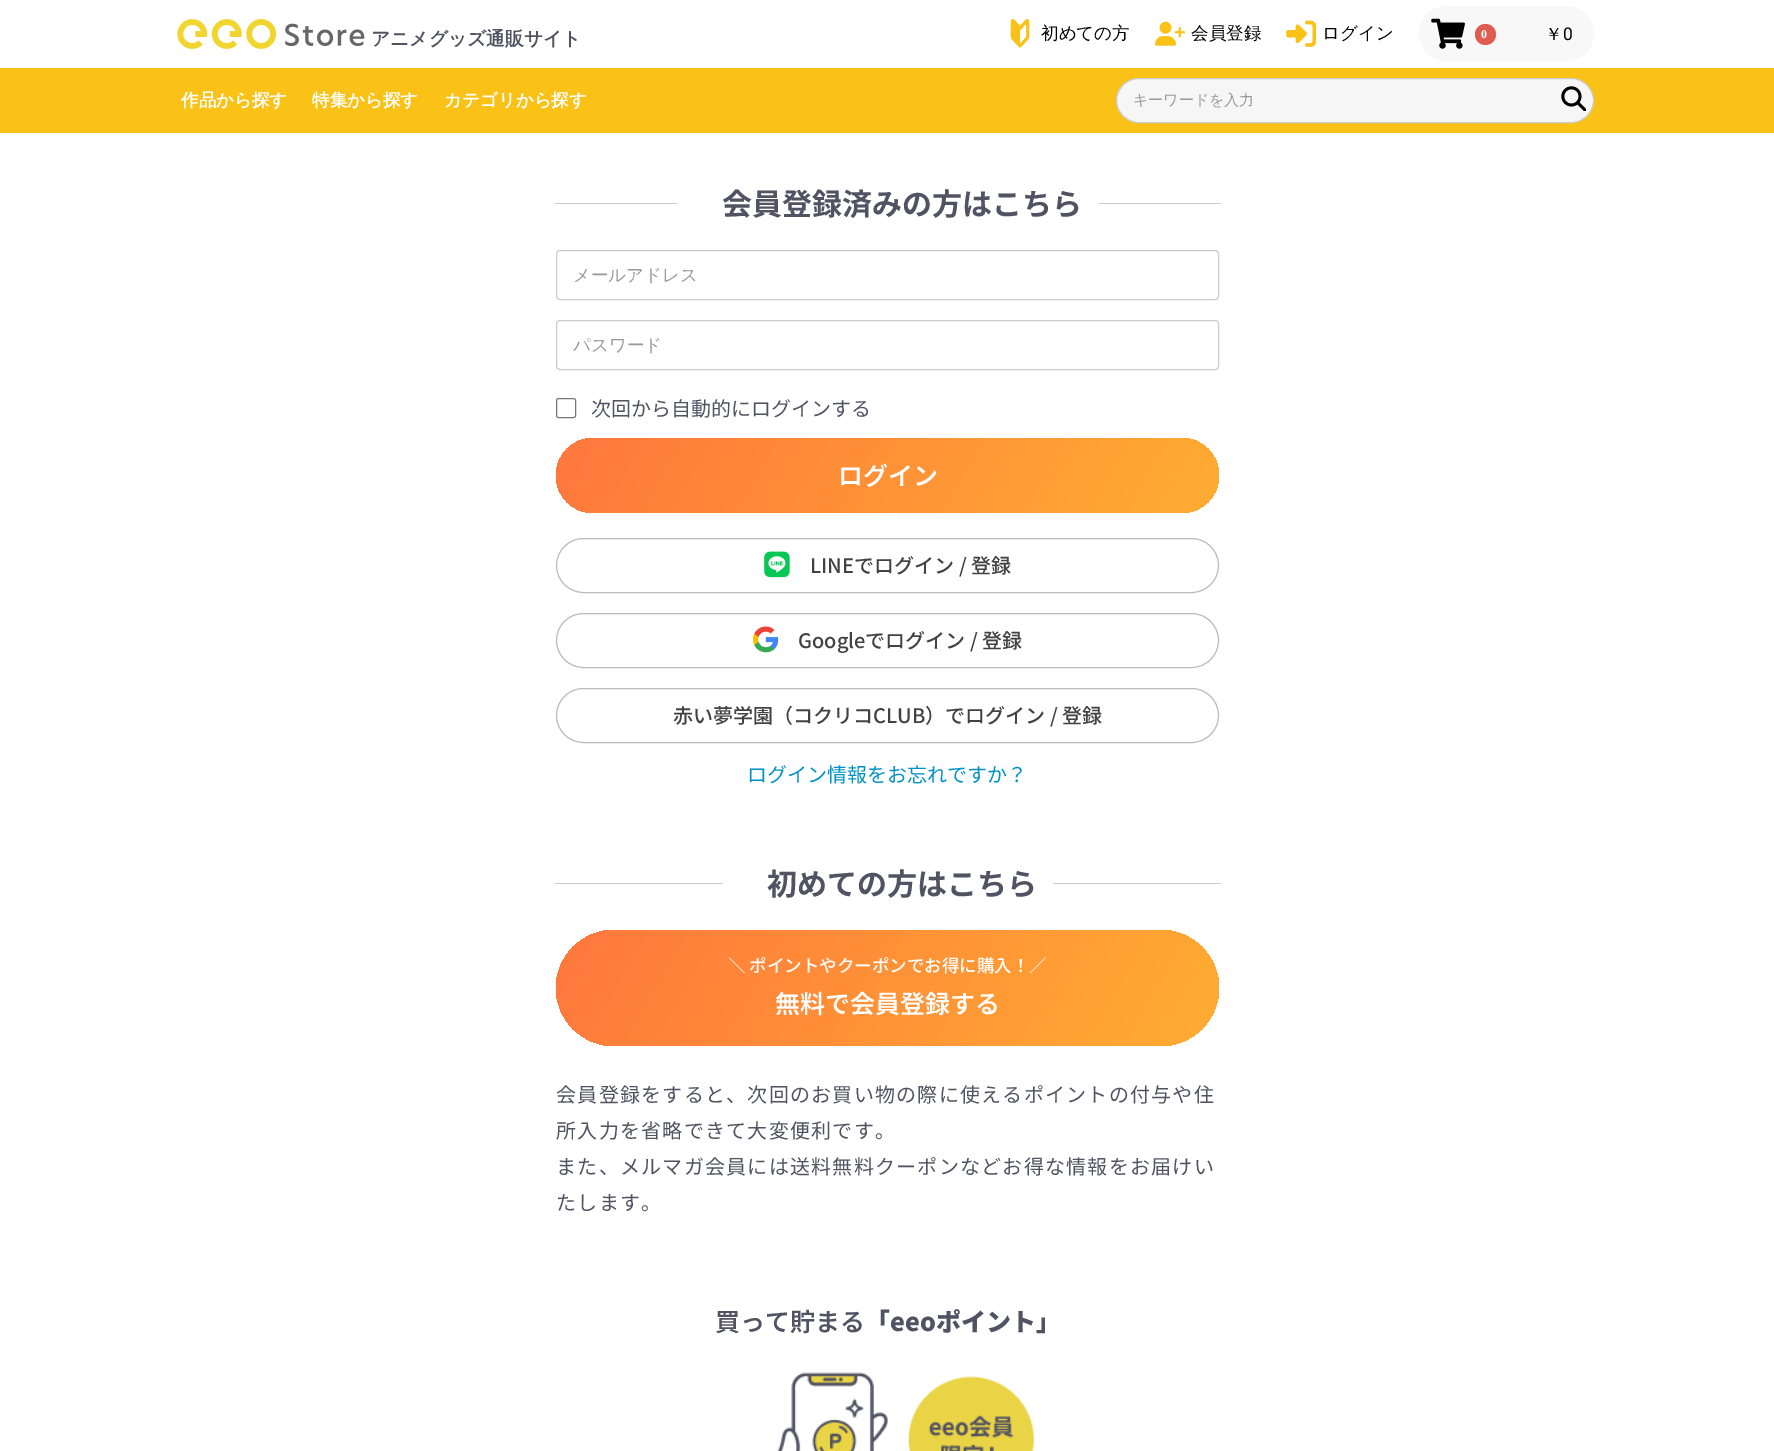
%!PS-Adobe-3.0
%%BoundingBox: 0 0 1774 1451
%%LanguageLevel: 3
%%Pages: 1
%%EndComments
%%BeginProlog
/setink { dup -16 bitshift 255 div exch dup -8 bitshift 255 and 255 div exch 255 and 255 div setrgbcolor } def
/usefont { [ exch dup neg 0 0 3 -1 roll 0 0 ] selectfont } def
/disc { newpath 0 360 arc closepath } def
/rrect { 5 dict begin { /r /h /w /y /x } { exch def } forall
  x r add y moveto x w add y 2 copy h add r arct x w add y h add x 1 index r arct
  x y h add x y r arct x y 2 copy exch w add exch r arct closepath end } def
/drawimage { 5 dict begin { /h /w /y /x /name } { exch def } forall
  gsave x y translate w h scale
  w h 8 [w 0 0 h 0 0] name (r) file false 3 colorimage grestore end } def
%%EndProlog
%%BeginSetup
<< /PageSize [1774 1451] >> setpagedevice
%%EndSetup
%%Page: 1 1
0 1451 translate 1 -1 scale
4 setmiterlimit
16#FFFFFF setink
0 0 1774 1451 rectfill
(img1.raw) 177 19 188 30 drawimage
/WenQuanYiZenHei-Bold 18.75 usefont
16#525263 setink
371 45 moveto (アニメグッズ通販サイト) show
(img2.raw) 1010 19 20 29 drawimage
/WenQuanYiZenHei-Medium 17.5 usefont
16#000000 setink
1041 39 moveto (初めての方) show
(img3.raw) 1155 21 30 25 drawimage
1191 39 moveto (会員登録) show
(img4.raw) 1286 20 30 27 drawimage
1322 39 moveto (ログイン) show
16#F8F8F8 setink
1419 6 175 55 27.5 rrect fill
(img5.raw) 1431 18 34 31 drawimage
16#DE5D50 setink
1485.5 34.5 10.5 disc fill
/LiberationSerif-Bold 12 usefont
16#FFFFFF setink
1481 38 moveto (0) show
/WenQuanYiZenHei-Medium 17.5 usefont
16#000000 setink
1545 40 moveto (￥) show
/Roboto-Regular 17.5 usefont
1563 40 moveto (0) show
16#FAC217 setink
0 68 1774 65 rectfill
/WenQuanYiZenHei-Bold 17.5 usefont
16#FFFFFF setink
[
    [(作品から探す) 181 106]
    [(特集から探す) 312 106]
    [(カテゴリから探す) 444 106]
] { aload pop moveto show } forall
16#F6F6F6 setink
1116.5 78.5 477 44 22 rrect gsave fill grestore
16#CCCCCC setink
stroke
/WenQuanYiZenHei-Medium 15 usefont
16#999999 setink
1133 105 moveto (キーワードを入力) show
(img6.raw) 1561 86 25 25 drawimage
16#CCCCCC setink
554 203 124 1 rectfill
/NotoSansJP-Bold 30 usefont
16#525263 setink
722 215 moveto (会員登録済みの方はこちら) show
16#CCCCCC setink
1098 203 123 1 rectfill
556.5 250.5 662 49 3.5 rrect stroke
/WenQuanYiZenHei-Medium 17.5 usefont
16#999999 setink
573 281 moveto (メールアドレス) show
16#CCCCCC setink
556.5 320.5 662 49 3.5 rrect stroke
16#999999 setink
573 351 moveto (パスワード) show
16#767676 setink
556.5 398.5 19 19 2 rrect stroke
/NotoSansJP-Regular 20 usefont
16#525263 setink
591 416 moveto (次回から自動的にログインする) show
gsave 556 438 663 75 37.5 rrect clip newpath
<< /ShadingType 2 /ColorSpace /DeviceRGB /Coords [623 322 1152 628] /Extend [true true] /Function << /FunctionType 2 /Domain [0 1] /C0 [1 0.467 0.239] /C1 [1 0.678 0.196] /N 1 >> >> shfill grestore
/NotoSansJP-SemiBold 25 usefont
16#FFFFFF setink
838 485 moveto (ログイン) show
16#BBBBBB setink
556.5 538.5 662 54 27 rrect stroke
(img7.raw) 764 551 26 27 drawimage
/NotoSansJP-Medium 20 usefont
16#424242 setink
810 573 moveto (LINEでログイン / 登録) show
16#BBBBBB setink
556.5 613.5 662 54 27 rrect stroke
(img8.raw) 753 626 26 27 drawimage
16#424242 setink
798 648 moveto (Googleでログイン / 登録) show
16#BBBBBB setink
556.5 688.5 662 54 27 rrect stroke
16#424242 setink
673 723 moveto (赤い夢学園（コクリコCLUB）でログイン / 登録) show
/NotoSansJP-Regular 20 usefont
16#0092C4 setink
747 782 moveto (ログイン情報をお忘れですか？) show
16#CCCCCC setink
554 883 169 1 rectfill
/NotoSansJP-Bold 30 usefont
16#525263 setink
767 895 moveto (初めての方はこちら) show
16#CCCCCC setink
1053 883 168 1 rectfill
gsave 556 930 663 116 58 rrect clip newpath
<< /ShadingType 2 /ColorSpace /DeviceRGB /Coords [614 830 1161 1146] /Extend [true true] /Function << /FunctionType 2 /Domain [0 1] /C0 [1 0.467 0.239] /C1 [1 0.678 0.196] /N 1 >> >> shfill grestore
/NotoSansJP-Medium 17.5 usefont
16#FFFFFF setink
728 972 moveto (＼ ポイントやクーポンでお得に購入！／) show
/NotoSansJP-SemiBold 25 usefont
775 1013 moveto (無料で会員登録する) show
/NotoSansJP-Regular 20 usefont
16#525263 setink
556 1102 moveto 1.25 0 (会員登録をすると、次回のお買い物の際に使えるポイントの付与や住) ashow
556 1138 moveto 1.25 0 (所入力を省略できて大変便利です。) ashow
556 1174 moveto 1.25 0 (また、メルマガ会員には送料無料クーポンなどお得な情報をお届けい) ashow
556 1210 moveto 1.25 0 (たします。) ashow
/NotoSansJP-SemiBold 25 usefont
715 1331 moveto (買って貯まる) show
/NotoSansJP-Black 25 usefont
865 1331 moveto (「eeoポイント」) show
(img9.raw) 777 1372 257 79 drawimage
showpage
%%EOF
